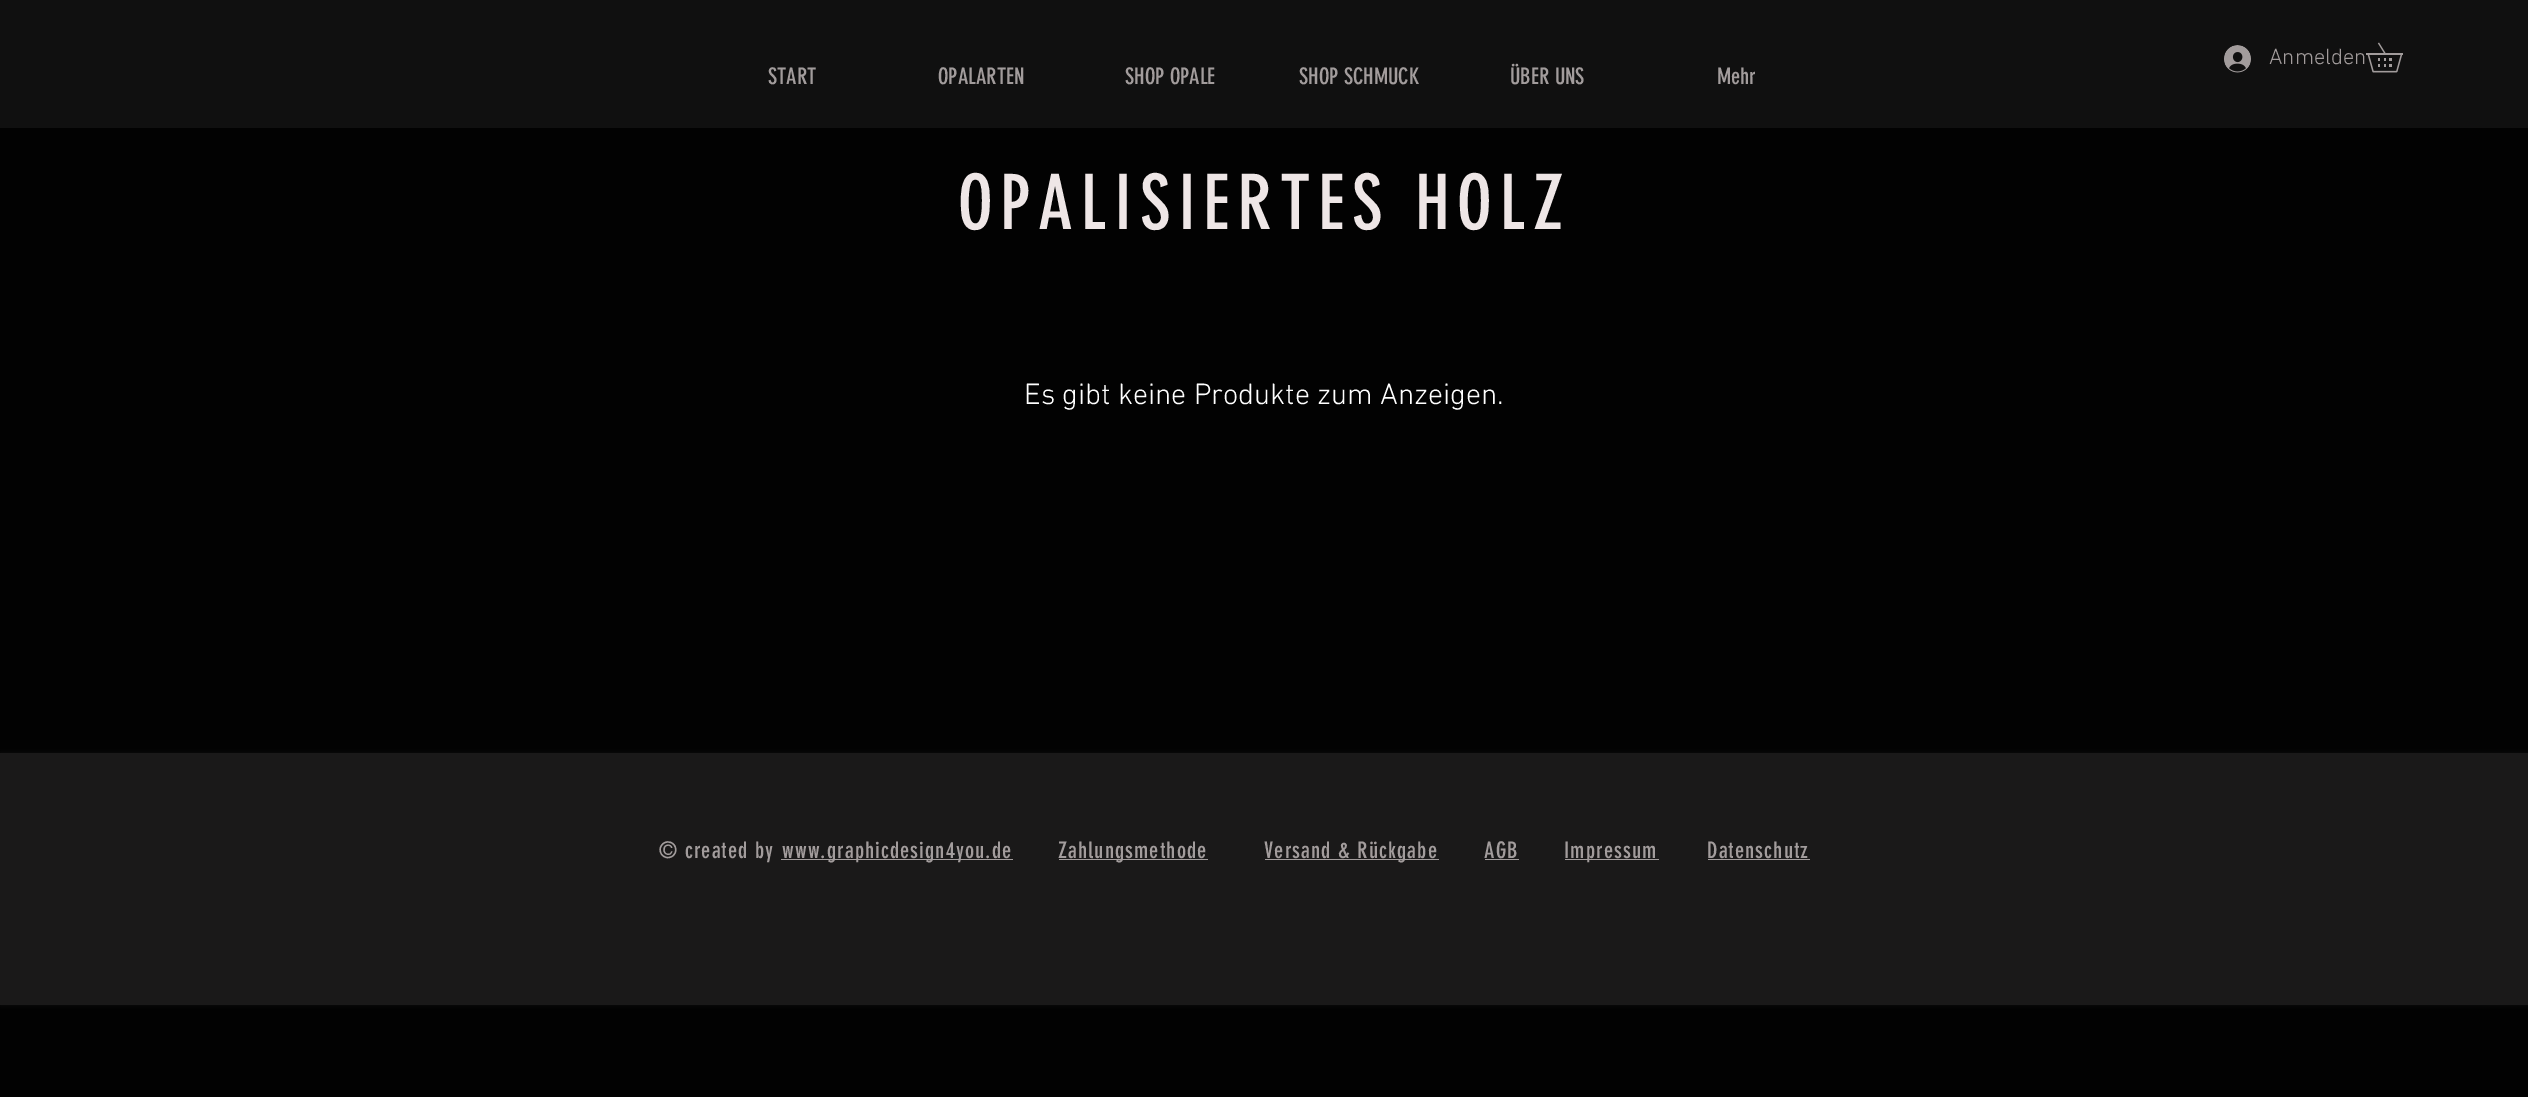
%!PS-Adobe-3.0
%%BoundingBox: 0 0 2528 1097
%%LanguageLevel: 3
%%Pages: 1
%%EndComments
%%BeginProlog
/setink { dup -16 bitshift 255 div exch dup -8 bitshift 255 and 255 div exch 255 and 255 div setrgbcolor } def
/usefont { [ exch dup neg 0 0 3 -1 roll 0 0 ] selectfont } def
/setalpha { dup .setfillconstantalpha .setstrokeconstantalpha } def
/rrect { 5 dict begin { /r /h /w /y /x } { exch def } forall
  x r add y moveto x w add y 2 copy h add r arct x w add y h add x 1 index r arct
  x y h add x y r arct x y 2 copy exch w add exch r arct closepath end } def
/softshadow { 12 dict begin { /a /b /q /h /w /y /x } { exch def } forall gsave /was 0 def
  9 -2 -9 { dup b mul 4 div /e exch def 1 sub .425 mul 2.718 exch exp 1 add a .99 .min exch div /now exch def
    1 1 now sub 1 was sub div sub setalpha /was now def
    w h .min e 2 mul add 0 gt { x e sub y e sub w e 2 mul add h e 2 mul add
      q e add b .6 mul add w h .min 2 div e add .min 0 .max rrect fill } if } for grestore end } def
/drawimage { 5 dict begin { /h /w /y /x /name } { exch def } forall
  gsave x y translate w h scale
  w h 8 [w 0 0 h 0 0] name (r) file false 3 colorimage grestore end } def
%%EndProlog
%%BeginSetup
<< /PageSize [2528 1097] /PageUsesTransparency true >> setpagedevice
%%EndSetup
%%Page: 1 1
0 .pushpdf14devicefilter
0 1097 translate 1 -1 scale
4 setmiterlimit
16#020202 setink
0 0 2528 1097 rectfill
16#101010 setink
0 0 2528 128 rectfill
(img1.raw) 2224 45 27 28 drawimage
/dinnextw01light-Light 22.5 usefont
16#A29C9C setink
2269 64 moveto (Anmelden) show
(img2.raw) 2366 42 37 31 drawimage
/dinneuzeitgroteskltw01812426-Regular 22.5 usefont
[
    [(START) 768 84]
    [(OPALARTEN) 938 84]
    [(SHOP OPALE) 1125 84]
    [(SHOP SCHMUCK) 1299 84]
    [(ÜBER UNS) 1510 84]
    [(Mehr) 1717 84]
] { aload pop moveto show } forall
/dinneuzeitgroteskltw01812426-Regular 75 usefont
16#EEE6E6 setink
958 229 moveto 7.5 0 (OPALISIERTES HOLZ) ashow
/dinnextw01light-Light 30 usefont
16#FFFFFF setink
1024 404 moveto (Es gibt keine Produkte zum Anzeigen.) show
16#141414 setink
0 753 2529 252 0 3 0.7 softshadow
16#1A1919 setink
0 753 2528 252 rectfill
/dinneuzeitgroteskltw01812426-Regular 22.5 usefont
16#A29C9C setink
659 858 moveto 1.1 0 (© created by) ashow
781 859 232 1 rectfill
782 858 moveto 1.1 0 (www.graphicdesign4you.de) ashow
1059 859 149 1 rectfill
1058 858 moveto 1.1 0 (Zahlungsmethode) ashow
1265 859 174 1 rectfill
1264 858 moveto 1.1 0 (Versand & Rückgabe) ashow
1484 858 moveto 1.1 0 (AGB) ashow
1485 859 34 1 rectfill
1565 859 94 1 rectfill
1564 858 moveto 1.1 0 (Impressum) ashow
1707 858 moveto 1.1 0 (Datenschutz) ashow
1708 859 102 1 rectfill
.poppdf14devicefilter showpage
%%EOF
